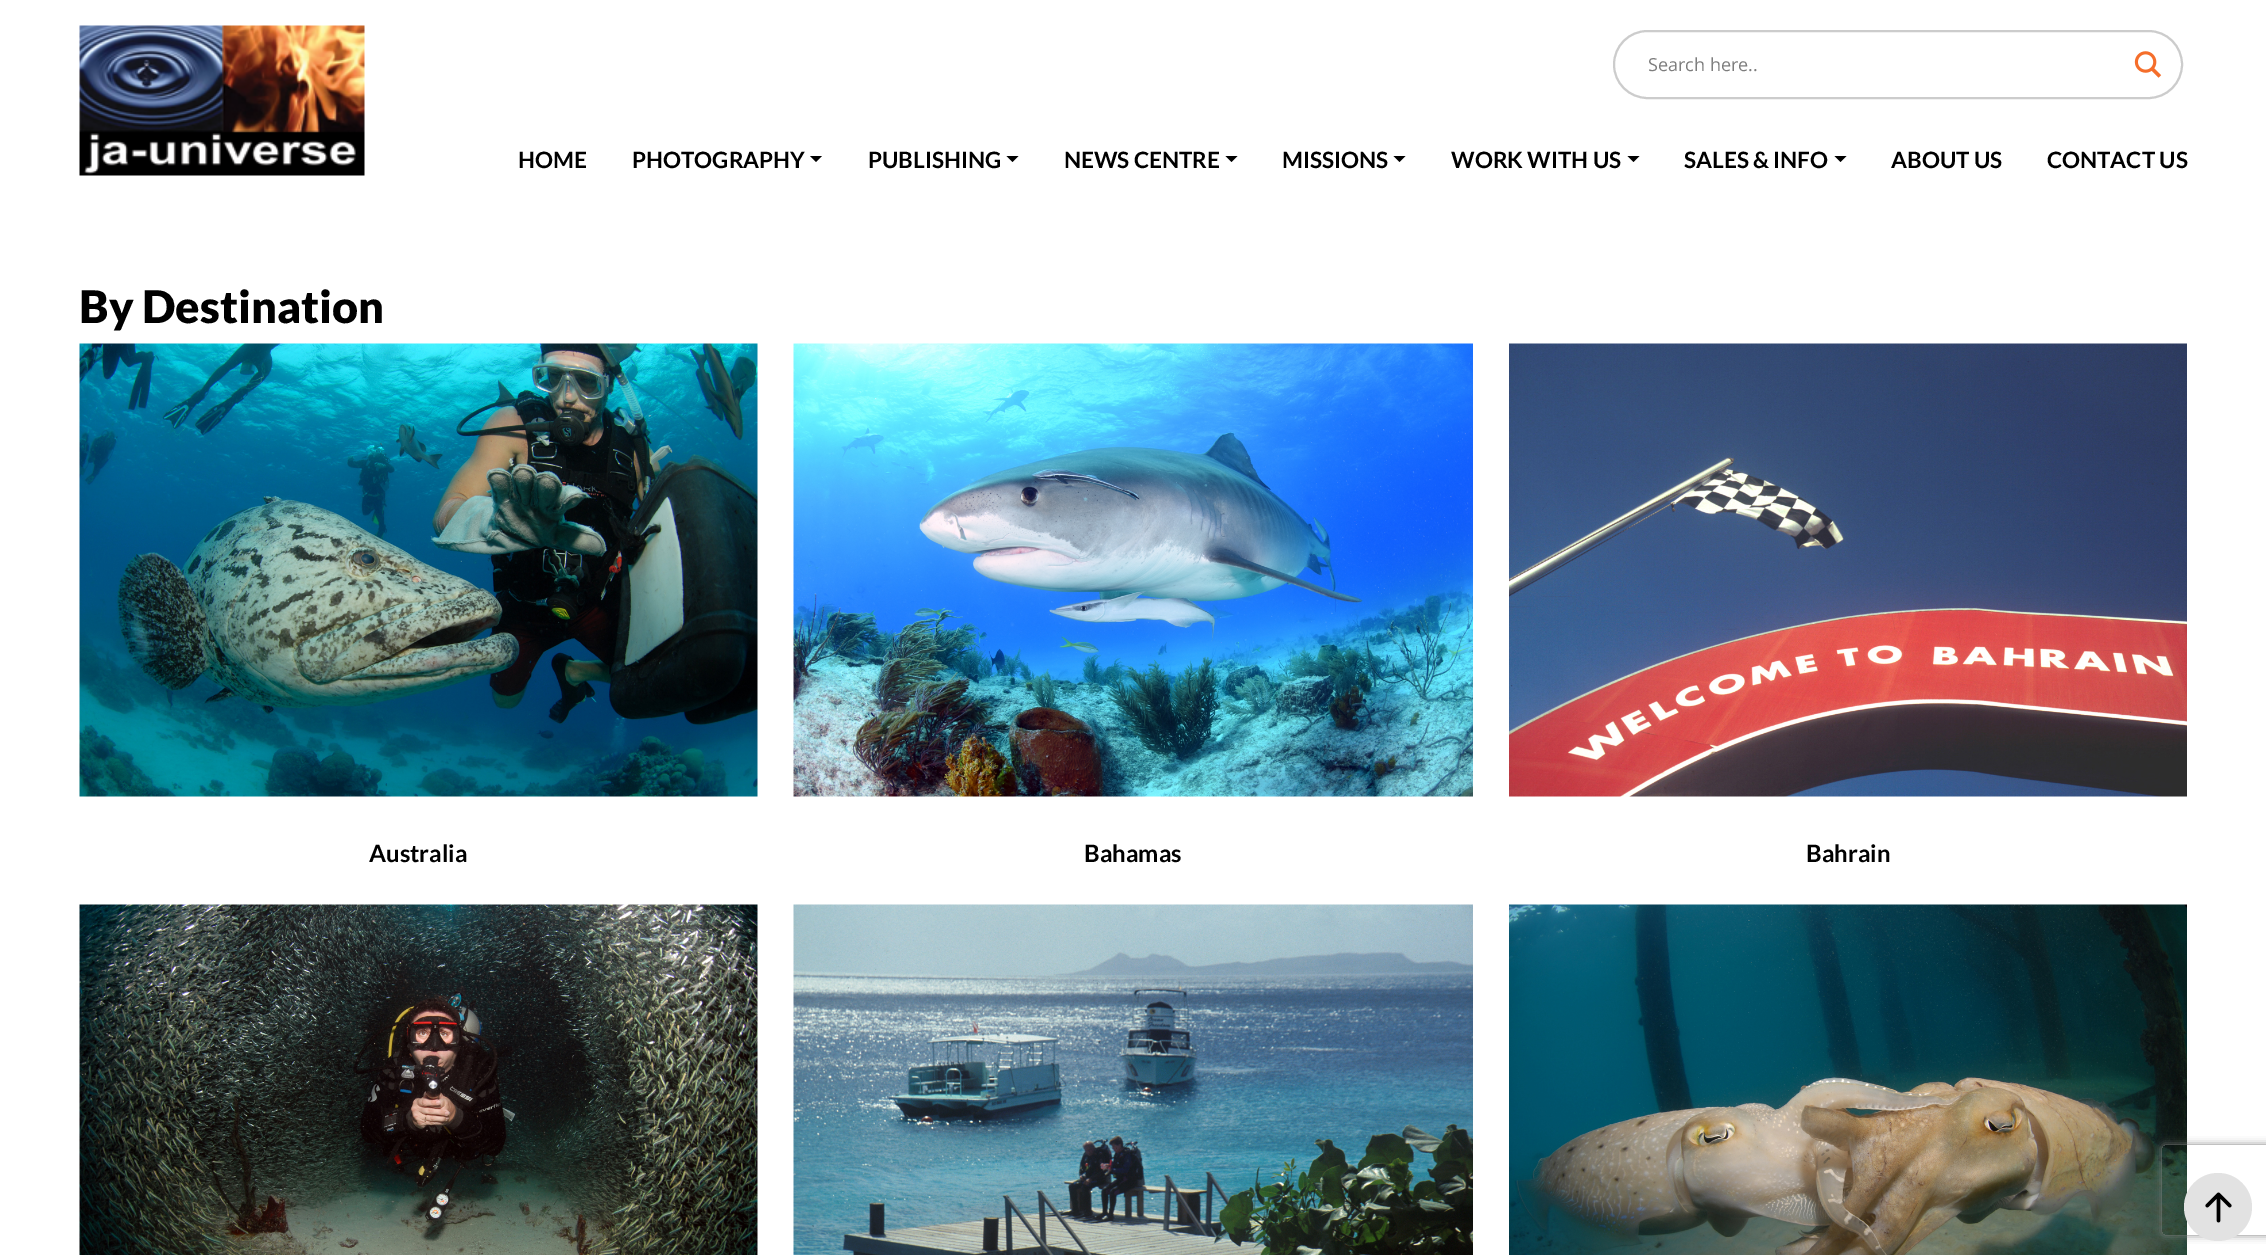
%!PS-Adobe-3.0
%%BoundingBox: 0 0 2266 1255
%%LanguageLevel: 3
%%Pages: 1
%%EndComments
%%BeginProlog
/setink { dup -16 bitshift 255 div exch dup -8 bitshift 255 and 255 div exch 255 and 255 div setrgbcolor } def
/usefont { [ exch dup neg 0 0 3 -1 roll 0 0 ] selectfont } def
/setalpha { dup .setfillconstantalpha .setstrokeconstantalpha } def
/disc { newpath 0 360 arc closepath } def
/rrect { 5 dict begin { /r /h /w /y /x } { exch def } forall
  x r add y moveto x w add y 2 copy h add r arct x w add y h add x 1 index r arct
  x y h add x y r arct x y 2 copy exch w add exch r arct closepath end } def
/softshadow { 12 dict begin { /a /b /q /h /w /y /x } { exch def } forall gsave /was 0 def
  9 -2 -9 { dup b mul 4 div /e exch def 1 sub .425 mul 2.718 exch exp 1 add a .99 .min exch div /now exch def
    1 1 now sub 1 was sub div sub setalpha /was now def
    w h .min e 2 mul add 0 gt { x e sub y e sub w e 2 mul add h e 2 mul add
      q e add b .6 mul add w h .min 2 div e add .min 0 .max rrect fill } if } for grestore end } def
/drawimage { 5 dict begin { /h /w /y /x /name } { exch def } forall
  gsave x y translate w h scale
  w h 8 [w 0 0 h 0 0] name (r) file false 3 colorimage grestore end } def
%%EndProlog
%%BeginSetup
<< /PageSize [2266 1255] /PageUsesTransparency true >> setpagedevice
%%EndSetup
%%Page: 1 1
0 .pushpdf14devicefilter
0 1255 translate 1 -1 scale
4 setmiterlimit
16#FFFFFF setink
0 0 2266 1255 rectfill
(img1.raw) 79 25 286 151 drawimage
16#CCCCCC setink
2 setlinewidth
1614 31 568 67 33.5 rrect stroke
gsave
1649 53 471 25 rectclip
/OpenSans-Regular 18 usefont
16#7D7D7D setink
1648 71 moveto (Search here..) show
grestore
(img2.raw) 2134 51 28 27 drawimage
/Lato-Bold 22.5 usefont
16#000000 setink
518 168 moveto (HOME) show
632 168 moveto (PHOTOGRAPHY) show
810 156 moveto 822 156 lineto 816 162 lineto closepath fill
868 168 moveto (PUBLISHING) show
1006.5 156 moveto 1018.5 156 lineto 1012.5 162 lineto closepath fill
1064 168 moveto (NEWS CENTRE) show
1225.5 156 moveto 1237.5 156 lineto 1231.5 162 lineto closepath fill
1282 168 moveto (MISSIONS) show
1393.5 156 moveto 1405.5 156 lineto 1399.5 162 lineto closepath fill
1451 168 moveto (WORK WITH US) show
1627.5 156 moveto 1639.5 156 lineto 1633.5 162 lineto closepath fill
1684 168 moveto (SALES & INFO) show
1834.5 156 moveto 1846.5 156 lineto 1840.5 162 lineto closepath fill
1891 168 moveto (ABOUT US) show
2047 168 moveto (CONTACT US) show
/Lato-Black 45 usefont
79 323 moveto (By Destination) show
(img3.raw) 79 343 679 454 drawimage
/Lato-Bold 24 usefont
369 862 moveto (Australia) show
(img4.raw) 793 343 680 454 drawimage
1084 862 moveto (Bahamas) show
(img5.raw) 1509 343 678 454 drawimage
1806 862 moveto (Bahrain) show
(img6.raw) 79 904 679 351 drawimage
(img7.raw) 793 904 680 351 drawimage
(img8.raw) 1509 904 678 351 drawimage
gsave
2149 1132 moveto 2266 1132 lineto 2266 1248 lineto 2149 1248 lineto closepath 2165 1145 moveto 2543 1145 lineto 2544.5 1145 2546 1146.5 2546 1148 curveto 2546 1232 lineto 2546 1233.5 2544.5 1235 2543 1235 curveto 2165 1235 lineto 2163.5 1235 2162 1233.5 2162 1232 curveto 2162 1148 lineto 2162 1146.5 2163.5 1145 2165 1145 curveto closepath eoclip newpath
16#808080 setink
2162 1145 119 90 3 4 1 softshadow
grestore
16#E2E2E2 setink
2218 1207 34 disc fill
(img9.raw) 2205 1192 27 31 drawimage
.poppdf14devicefilter showpage
%%EOF
